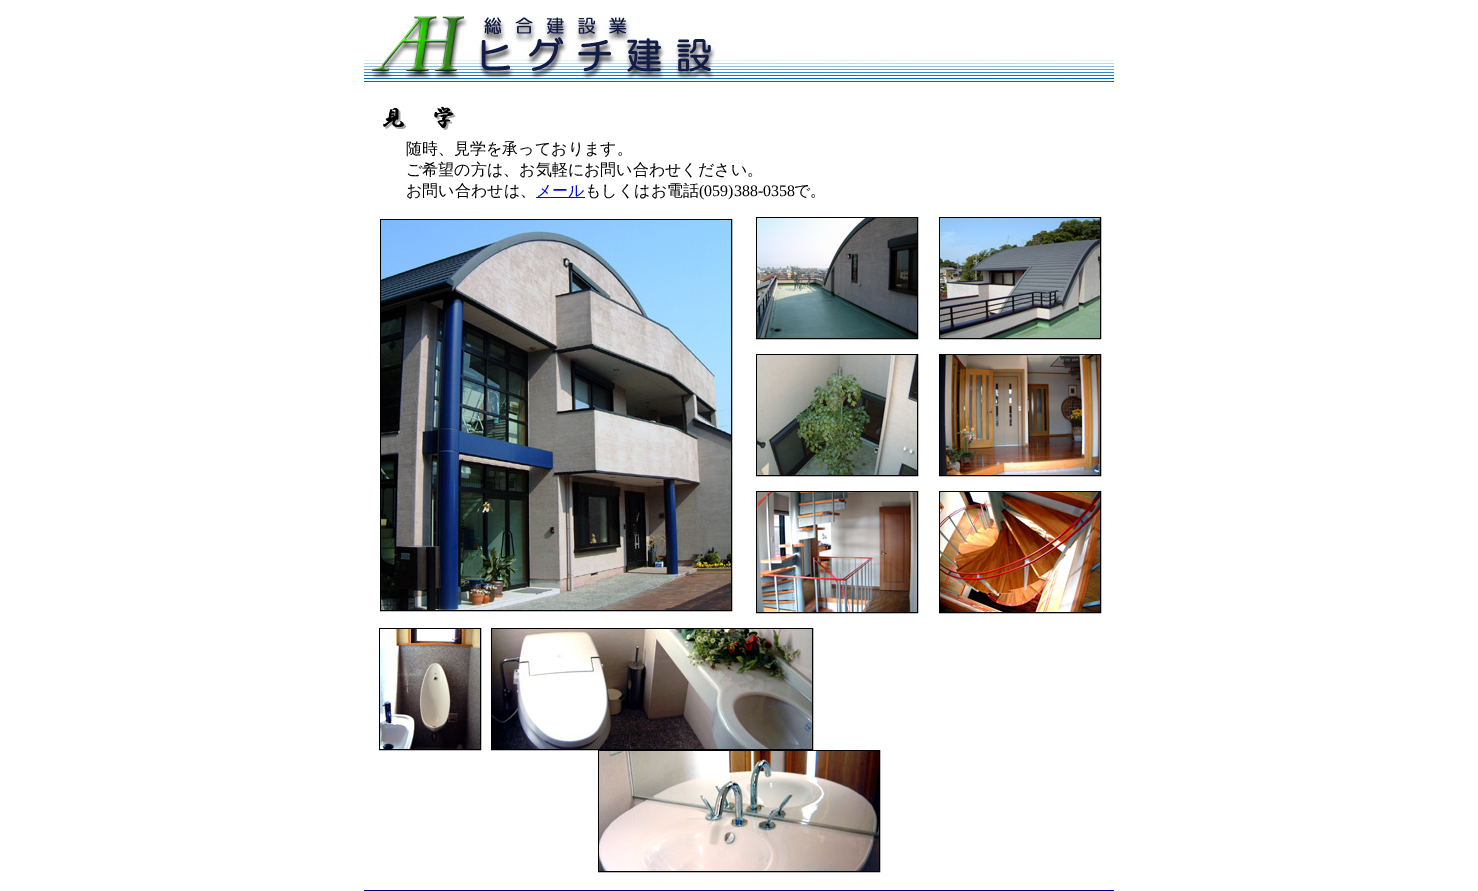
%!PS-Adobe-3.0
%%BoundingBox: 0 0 1478 891
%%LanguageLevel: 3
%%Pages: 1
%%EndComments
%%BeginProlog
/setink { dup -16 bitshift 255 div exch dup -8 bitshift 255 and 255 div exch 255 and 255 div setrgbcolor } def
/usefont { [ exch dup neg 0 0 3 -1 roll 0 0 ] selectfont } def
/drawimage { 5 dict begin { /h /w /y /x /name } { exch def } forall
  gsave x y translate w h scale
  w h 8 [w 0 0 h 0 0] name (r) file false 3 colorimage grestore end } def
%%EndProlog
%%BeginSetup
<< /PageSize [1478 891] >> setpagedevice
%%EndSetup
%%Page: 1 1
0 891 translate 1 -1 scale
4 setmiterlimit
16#FFFFFF setink
0 0 1478 891 rectfill
(img1.raw) 364 15 750 67 drawimage
(img2.raw) 383 106 73 24 drawimage
/WenQuanYiZenHei-Medium 16 usefont
16#000000 setink
[
    [(随時、見学を承っております。) 406 154]
    [(ご希望の方は、お気軽にお問い合わせください。) 406 175]
    [(お問い合わせは、) 406 196]
] { aload pop moveto show } forall
16#0000EE setink
536 196 moveto (メール) show
536 197 49 1 rectfill
16#000000 setink
585 196 moveto (もしくはお電話) show
/LiberationSerif-Regular 16 usefont
699 196 moveto (\(059\)388-0358) show
/WenQuanYiZenHei-Medium 16 usefont
794 196 moveto (で。) show
380.5 219.5 351 391 rectstroke
(img3.raw) 381 220 350 390 drawimage
756.5 217.5 161 121 rectstroke
(img4.raw) 757 218 160 120 drawimage
939.5 217.5 161 121 rectstroke
(img5.raw) 940 218 160 120 drawimage
756.5 354.5 161 121 rectstroke
(img6.raw) 757 355 160 120 drawimage
939.5 354.5 161 121 rectstroke
(img7.raw) 940 355 160 120 drawimage
756.5 491.5 161 121 rectstroke
(img8.raw) 757 492 160 120 drawimage
939.5 491.5 161 121 rectstroke
(img9.raw) 940 492 160 120 drawimage
379.5 628.5 101 121 rectstroke
(img10.raw) 380 629 100 120 drawimage
491.5 628.5 321 121 rectstroke
(img11.raw) 492 629 320 120 drawimage
598.5 750.5 281 121 rectstroke
(img12.raw) 599 751 280 120 drawimage
16#00008B setink
364 890 750 1 rectfill
showpage
%%EOF
